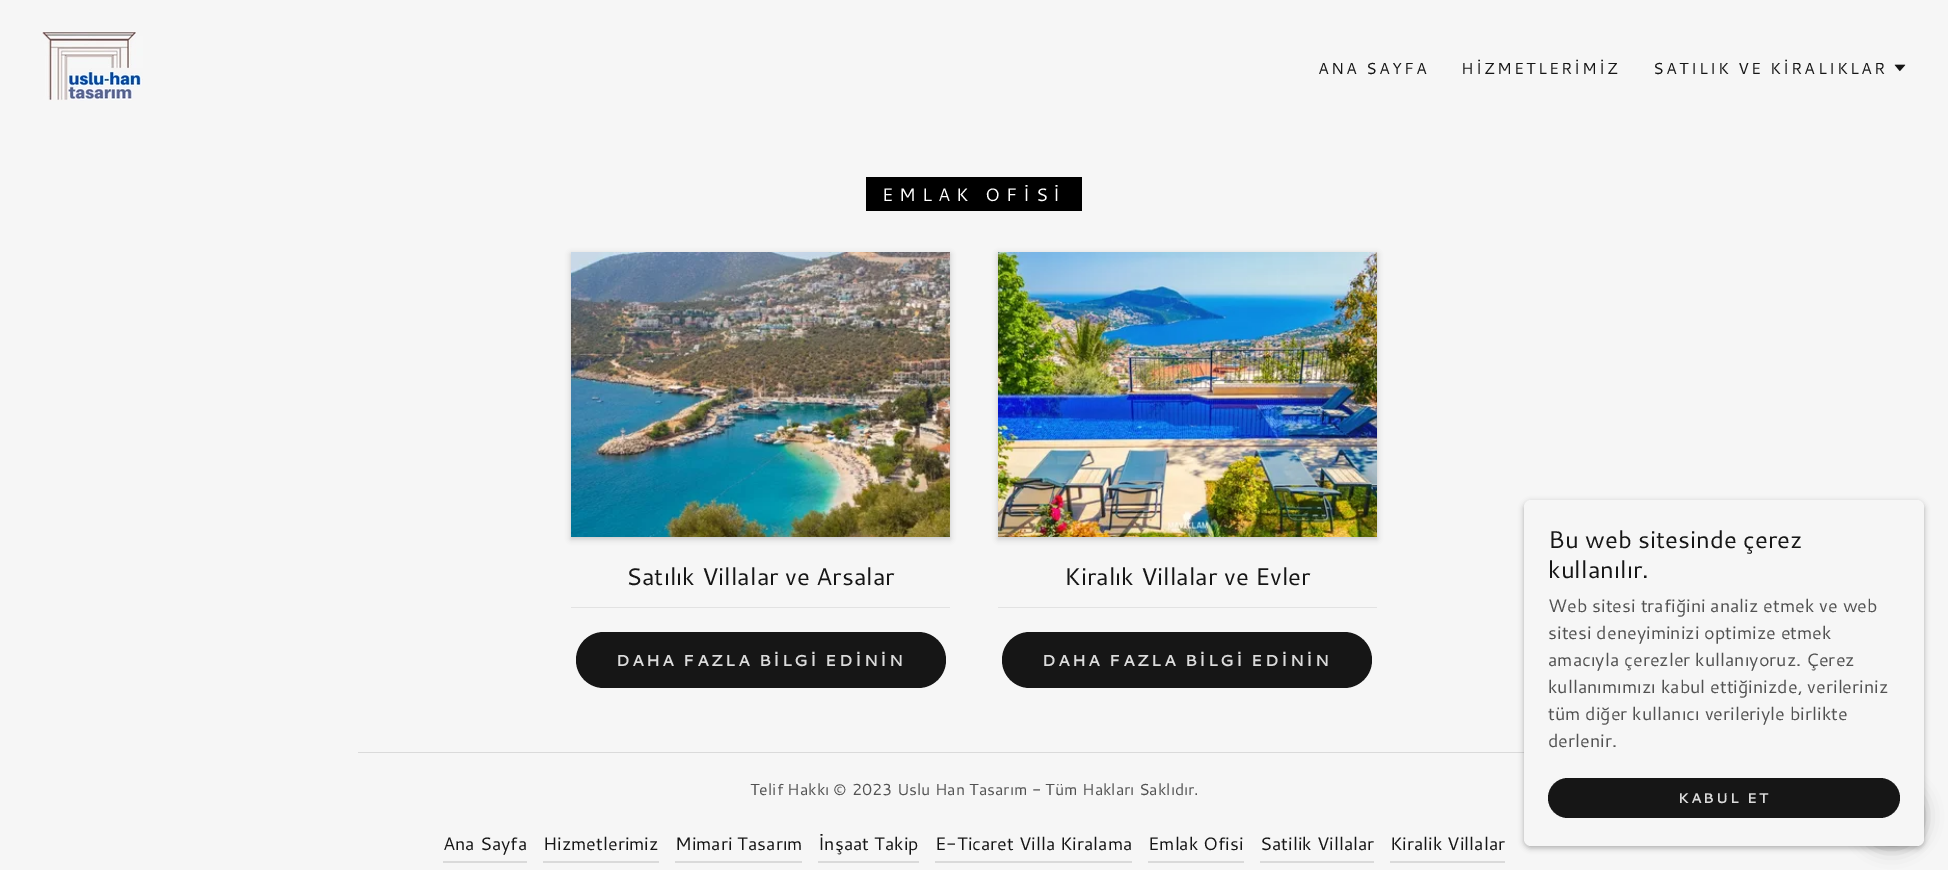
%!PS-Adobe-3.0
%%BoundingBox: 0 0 1948 870
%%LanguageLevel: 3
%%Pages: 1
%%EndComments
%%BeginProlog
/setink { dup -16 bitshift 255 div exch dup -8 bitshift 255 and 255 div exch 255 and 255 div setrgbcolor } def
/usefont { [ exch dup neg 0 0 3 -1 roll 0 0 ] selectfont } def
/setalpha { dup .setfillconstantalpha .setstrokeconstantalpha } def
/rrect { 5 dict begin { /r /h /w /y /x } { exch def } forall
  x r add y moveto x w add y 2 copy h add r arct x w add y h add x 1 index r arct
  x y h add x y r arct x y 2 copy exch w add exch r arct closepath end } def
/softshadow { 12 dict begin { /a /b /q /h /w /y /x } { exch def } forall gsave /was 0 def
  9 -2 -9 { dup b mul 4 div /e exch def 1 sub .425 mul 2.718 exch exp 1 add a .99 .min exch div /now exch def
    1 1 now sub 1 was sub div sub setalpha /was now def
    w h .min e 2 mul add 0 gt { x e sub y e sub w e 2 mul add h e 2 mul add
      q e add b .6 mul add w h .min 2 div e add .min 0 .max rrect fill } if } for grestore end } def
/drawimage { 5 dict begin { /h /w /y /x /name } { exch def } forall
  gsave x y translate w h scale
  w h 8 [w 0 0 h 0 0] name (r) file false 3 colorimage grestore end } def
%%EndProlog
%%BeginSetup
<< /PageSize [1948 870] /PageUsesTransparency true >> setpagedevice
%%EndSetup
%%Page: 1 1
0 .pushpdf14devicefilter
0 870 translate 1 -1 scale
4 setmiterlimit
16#F6F6F6 setink
0 0 1948 870 rectfill
(img1.raw) 41 31 102 70 drawimage
/Cantarell-Regular 16 usefont
16#161616 setink
1318 74 moveto 2.25 0 (ANA SAYFA) ashow
1461 74 moveto 2.25 0 (HİZMETLERİMİZ) ashow
1653 74 moveto 2.25 0 (SATILIK VE KİRALIKLAR) ashow
(img2.raw) 1894 64 12 8 drawimage
16#000000 setink
866 177 216 34 rectfill
/Cantarell-Regular 18 usefont
16#FFFFFF setink
882 201 moveto 6 0 (EMLAK OFİSİ) ashow
16#000000 setink
571 254 379 285 0 3 0.2 softshadow
(img3.raw) 571 252 379 285 drawimage
16#E2E2E2 setink
571 607 379 1 rectfill
/Cantarell-Regular 24 usefont
16#161616 setink
626 585 moveto (Satılık Villalar ve Arsalar) show
576 632 370 56 28 rrect fill
/Cantarell-Bold 16 usefont
16#DBDBDB setink
616 666 moveto 2.25 0 (DAHA FAZLA BİLGİ EDİNİN) ashow
16#000000 setink
998 254 379 285 0 3 0.2 softshadow
(img4.raw) 998 252 379 285 drawimage
16#E2E2E2 setink
998 607 379 1 rectfill
/Cantarell-Regular 24 usefont
16#161616 setink
1064 585 moveto (Kiralık Villalar ve Evler) show
1002 632 370 56 28 rrect fill
/Cantarell-Bold 16 usefont
16#DBDBDB setink
1042 666 moveto 2.25 0 (DAHA FAZLA BİLGİ EDİNİN) ashow
16#DADADA setink
358 752 1166 1 rectfill
16#000000 setink
1524 502 400 346 7 3 0.3 softshadow
1859 784 65 65 32.5 9 0.25 softshadow
16#F6F6F6 setink
1524 500 400 346 7 rrect fill
/Cantarell-Regular 24 usefont
16#161616 setink
1548 548 moveto (Bu web sitesinde çerez) show
1548 578 moveto (kullanılır.) show
/Cantarell-Regular 18 usefont
16#525252 setink
[
    [(Web sitesi trafiğini analiz etmek ve web) 1548 612]
    [(sitesi deneyiminizi optimize etmek) 1548 639]
    [(amacıyla çerezler kullanıyoruz. Çerez) 1548 666]
    [(kullanımımızı kabul ettiğinizde, verileriniz) 1548 693]
    [(tüm diğer kullanıcı verileriyle birlikte) 1548 720]
    [(derlenir.) 1548 747]
] { aload pop moveto show } forall
16#161616 setink
1548 778 352 40 20 rrect fill
/Cantarell-Bold 14 usefont
16#DBDBDB setink
1678 803 moveto 2 0 (KABUL ET) ashow
/Cantarell-Regular 16 usefont
16#525252 setink
750 795 moveto (Telif Hakkı © 2023 Uslu Han Tasarım - Tüm Hakları Saklıdır.) show
16#DADADA setink
443 861 84 2 rectfill
/Cantarell-Regular 18 usefont
16#161616 setink
443 850 moveto (Ana Sayfa) show
16#DADADA setink
543 861 116 2 rectfill
16#161616 setink
543 850 moveto (Hizmetlerimiz) show
16#DADADA setink
675 861 127 2 rectfill
16#161616 setink
675 850 moveto (Mimari Tasarım) show
16#DADADA setink
818 861 101 2 rectfill
16#161616 setink
818 850 moveto (İnşaat Takip) show
16#DADADA setink
935 861 197 2 rectfill
16#161616 setink
935 850 moveto (E-Ticaret Villa Kiralama) show
16#DADADA setink
1148 861 96 2 rectfill
16#161616 setink
1148 850 moveto (Emlak Ofisi) show
16#DADADA setink
1260 861 114 2 rectfill
16#161616 setink
1260 850 moveto (Satilik Villalar) show
16#DADADA setink
1390 861 115 2 rectfill
16#161616 setink
1390 850 moveto (Kiralik Villalar) show
.poppdf14devicefilter showpage
%%EOF
